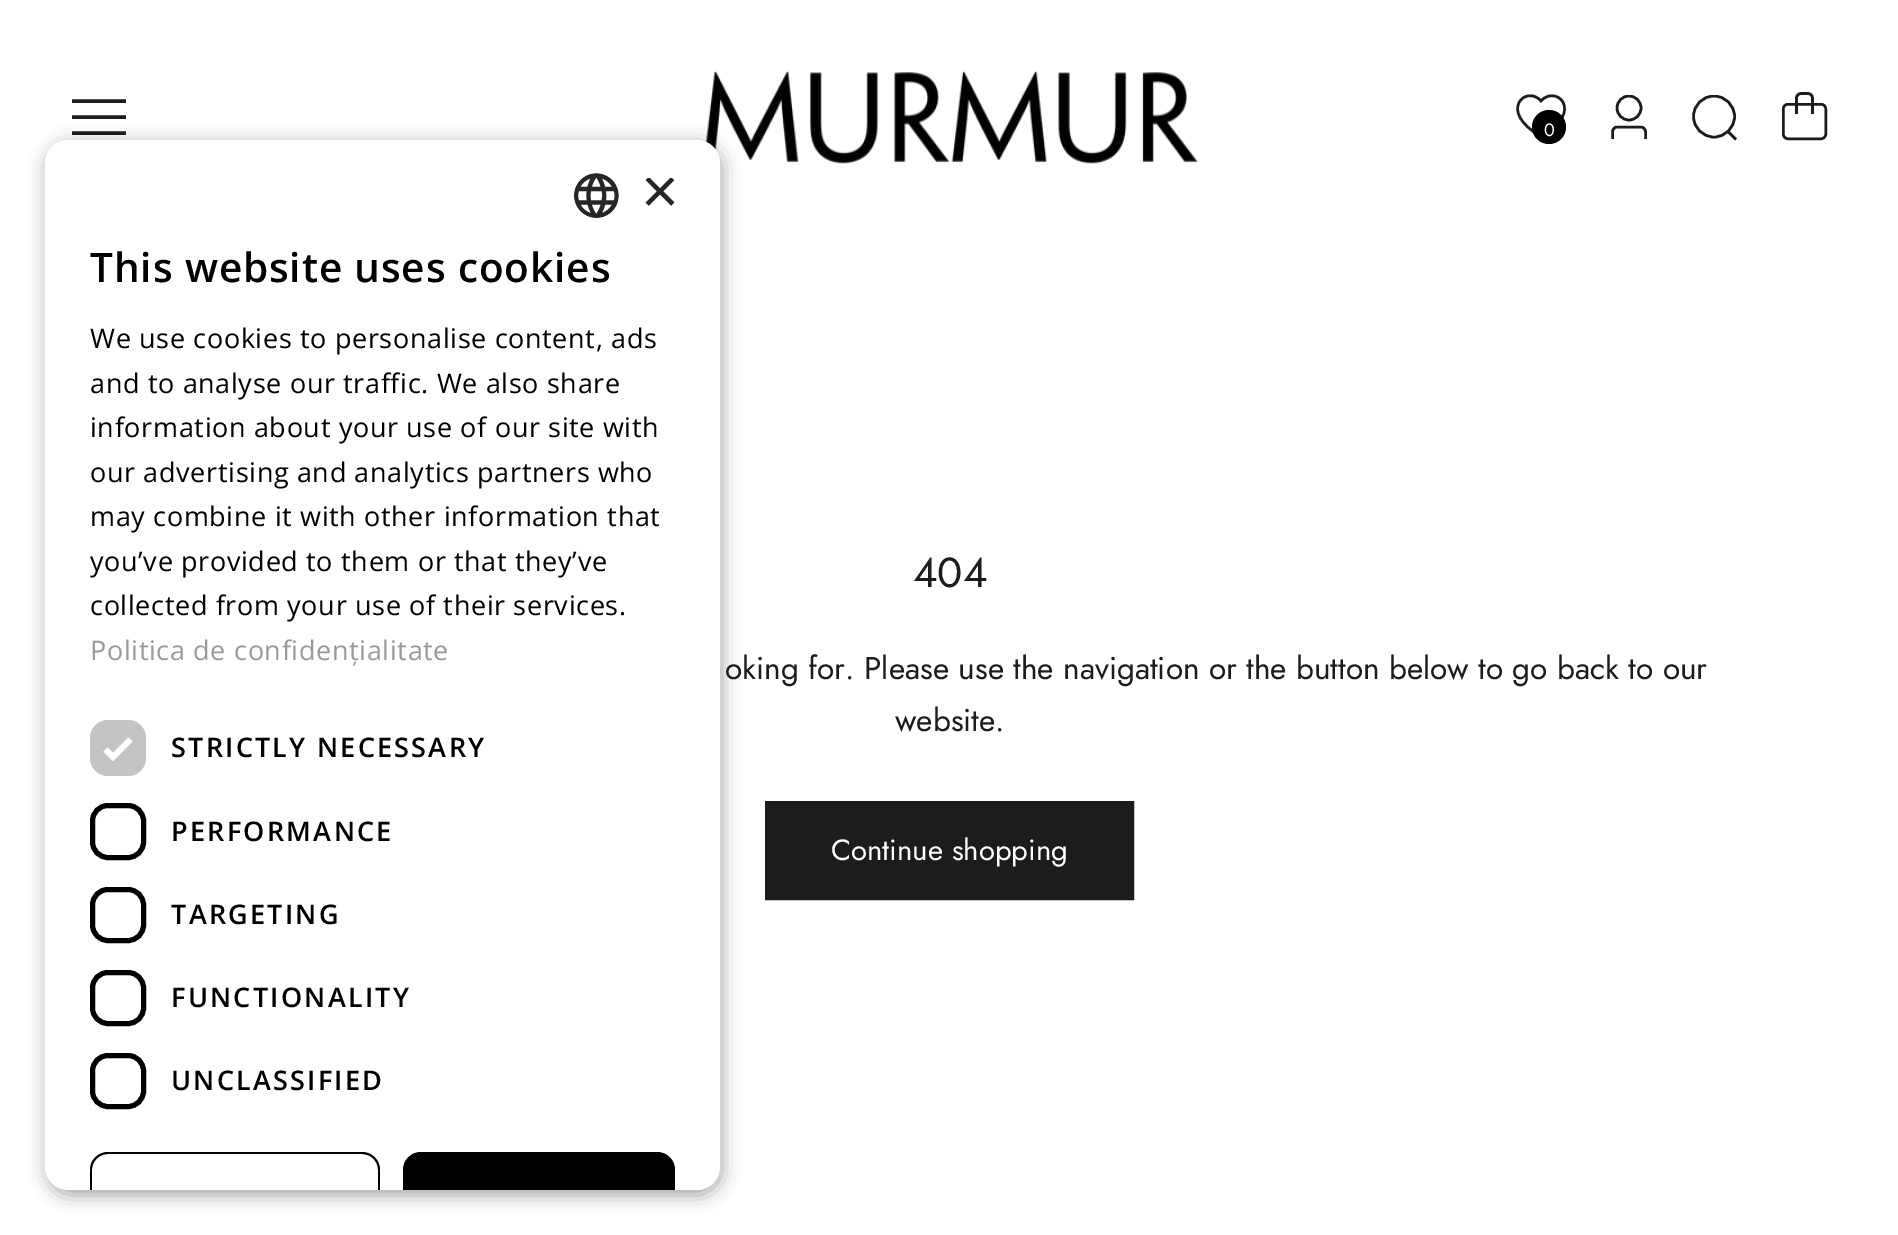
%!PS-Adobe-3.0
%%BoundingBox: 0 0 1898 1235
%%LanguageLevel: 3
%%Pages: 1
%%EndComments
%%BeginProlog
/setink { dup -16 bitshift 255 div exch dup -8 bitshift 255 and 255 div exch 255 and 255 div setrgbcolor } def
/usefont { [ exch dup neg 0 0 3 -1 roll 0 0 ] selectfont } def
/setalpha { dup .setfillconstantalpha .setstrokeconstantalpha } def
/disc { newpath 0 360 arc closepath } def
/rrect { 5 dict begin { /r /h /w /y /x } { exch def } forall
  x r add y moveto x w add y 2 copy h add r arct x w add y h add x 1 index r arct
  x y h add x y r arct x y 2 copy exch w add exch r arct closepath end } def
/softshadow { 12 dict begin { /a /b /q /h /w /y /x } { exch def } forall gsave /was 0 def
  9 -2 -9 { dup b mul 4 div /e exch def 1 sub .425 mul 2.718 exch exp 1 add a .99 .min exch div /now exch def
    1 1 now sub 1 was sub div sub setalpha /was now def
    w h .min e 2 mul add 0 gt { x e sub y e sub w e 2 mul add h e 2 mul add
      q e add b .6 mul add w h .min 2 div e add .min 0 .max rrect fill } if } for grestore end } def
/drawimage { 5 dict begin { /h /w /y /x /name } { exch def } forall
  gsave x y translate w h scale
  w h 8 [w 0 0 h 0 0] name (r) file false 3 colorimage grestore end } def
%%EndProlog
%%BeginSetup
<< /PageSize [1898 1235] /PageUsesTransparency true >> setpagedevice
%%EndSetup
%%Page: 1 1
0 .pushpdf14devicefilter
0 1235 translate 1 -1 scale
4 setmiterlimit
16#FFFFFF setink
0 0 1898 1235 rectfill
16#1C1C1C setink
3.6 setlinewidth
2 setlinecap
74 133 moveto 124 133 lineto 74 117 moveto 124 117 lineto 74 101 moveto 124 101 lineto stroke
(img1.raw) 705 71 493 93 drawimage
2.5 setlinewidth
0 setlinecap
1541 136.5 moveto 1496.5 111 1526.5 84 1541 101 curveto 1555.5 84 1586 111 1541 136.5 curveto closepath stroke
16#000000 setink
1549 127 17 disc fill
/Jost-Regular 18 usefont
16#FFFFFF setink
1544 136 moveto (0) show
gsave
1611 95 36 45 rectclip
16#1C1C1C setink
2.6 setlinewidth
1629 108 12 disc stroke
grestore
16#1C1C1C setink
2.6 setlinewidth
1612.5 139 moveto 1612.5 132 lineto 1612.5 129.5 1614.5 127 1617 127 curveto 1641 127 lineto 1643.5 127 1645.5 129.5 1645.5 132 curveto 1645.5 139 lineto stroke
gsave
1692 95 45 45 rectclip
1714 116.5 20.5 disc stroke
grestore
1728.5 132 moveto 1736 139.5 lineto stroke
2.5 setlinewidth
1783.25 104.25 42.5 34.5 4.75 rrect stroke
2.7 setlinewidth
1796.5 114 moveto 1796.5 98 lineto 1796.5 95.5 1798.5 93.5 1801.5 93.5 curveto 1807.5 93.5 lineto 1810.5 93.5 1812.5 95.5 1812.5 98 curveto 1812.5 114 lineto stroke
16#000000 setink
47 144 675 1051 23 9 0.35 softshadow
16#FFFFFF setink
45 140 675 1050 23 rrect fill
(img2.raw) 574 173 45 45 drawimage
gsave
641 178 34 34 rectclip
/LiberationSans-Regular 65 usefont
16#262626 setink
641 213 moveto (×) show
grestore
/OpenSans-SemiBold 40.5 usefont
16#000000 setink
90 282 moveto 0.9 0 (This website uses cookies) ashow
/OpenSans-Regular 27 usefont
90 348 moveto 0.65 0 (We use cookies to personalise content, ads) ashow
90 393 moveto 0.65 0 (and to analyse our traffic. We also share) ashow
90 437 moveto 0.65 0 (information about your use of our site with) ashow
90 482 moveto 0.65 0 (our advertising and analytics partners who) ashow
90 526 moveto 0.65 0 (may combine it with other information that) ashow
90 571 moveto 0.65 0 (you’ve provided to them or that they’ve) ashow
90 615 moveto 0.65 0 (collected from your use of their services.) ashow
16#999999 setink
90 660 moveto 0.65 0 (Politica de confidențialitate) ashow
16#C4C4C4 setink
90 720 56 56 18 rrect fill
16#FFFFFF setink
5.9 setlinewidth
105.5 749.5 moveto 113 757 lineto 130.5 739.5 lineto stroke
/OpenSans-SemiBold 27 usefont
16#000000 setink
171 757 moveto 2.25 0 (STRICTLY NECESSARY) ashow
5 setlinewidth
92.5 805.5 51 52 15.5 rrect stroke
171 841 moveto 2.25 0 (PERFORMANCE) ashow
92.5 889.5 51 51 15.5 rrect stroke
171 924 moveto 2.25 0 (TARGETING) ashow
92.5 972.5 51 51 15.5 rrect stroke
171 1007 moveto 2.25 0 (FUNCTIONALITY) ashow
92.5 1055.5 51 51 15.5 rrect stroke
171 1090 moveto 2.25 0 (UNCLASSIFIED) ashow
108 1152 moveto 98 1152 90 1160 90 1170 curveto 90 1190 lineto 92 1190 lineto 92 1170 lineto 92 1161 99 1154 108 1154 curveto 362 1154 lineto 371 1154 378 1161 378 1170 curveto 378 1190 lineto 380 1190 lineto 380 1170 lineto 380 1160 372 1152 362 1152 curveto closepath fill
421 1152 moveto 657 1152 lineto 667 1152 675 1160 675 1170 curveto 675 1190 lineto 403 1190 lineto 403 1170 lineto 403 1160 411 1152 421 1152 curveto closepath fill
/Jost-Regular 42 usefont
16#1C1C1C setink
913 587 moveto (404) show
/Jost-Regular 31.5 usefont
725 679 moveto (oking for. Please use the navigation or the button below to go back to our) show
895 731 moveto (website.) show
766 802 moveto 1133 802 lineto 1133 899 lineto 766 899 lineto closepath gsave fill grestore
2 setlinewidth
stroke
/Jost-Regular 29.25 usefont
16#FFFFFF setink
831 860 moveto (Continue shopping) show
.poppdf14devicefilter showpage
%%EOF
